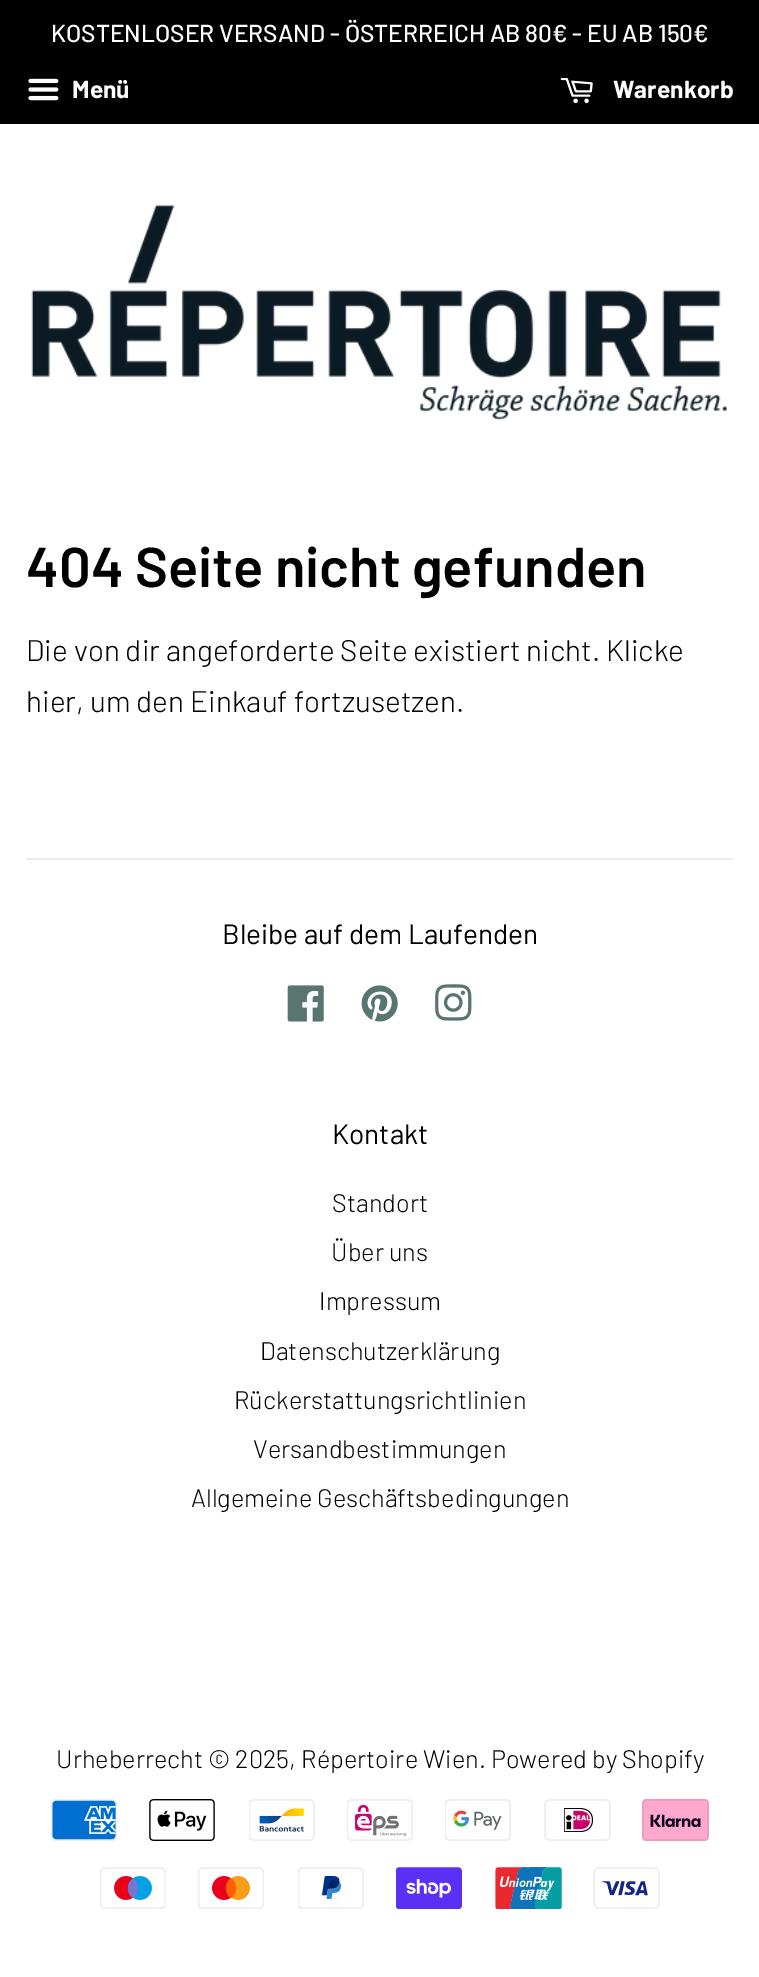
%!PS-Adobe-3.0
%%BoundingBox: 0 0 759 1977
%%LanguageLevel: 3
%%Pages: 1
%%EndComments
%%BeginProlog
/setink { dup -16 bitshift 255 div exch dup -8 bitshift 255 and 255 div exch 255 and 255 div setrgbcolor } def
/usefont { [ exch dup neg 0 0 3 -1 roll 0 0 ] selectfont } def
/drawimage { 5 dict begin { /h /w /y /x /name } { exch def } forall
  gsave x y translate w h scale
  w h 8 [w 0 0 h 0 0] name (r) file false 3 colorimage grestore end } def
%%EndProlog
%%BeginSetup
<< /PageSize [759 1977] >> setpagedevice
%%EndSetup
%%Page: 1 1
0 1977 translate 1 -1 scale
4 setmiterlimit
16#FFFFFF setink
0 0 759 1977 rectfill
16#000000 setink
0 0 759 124 rectfill
/Barlow-Medium 24.5 usefont
16#FFFFFF setink
51 42 moveto (KOSTENLOSER VERSAND - ÖSTERREICH AB 80€ - EU AB 150€) show
(img1.raw) 28 78 31 23 drawimage
/Barlow-Bold 24.5 usefont
72 98 moveto (Menü) show
(img2.raw) 560 78 33 26 drawimage
613 98 moveto (Warenkorb) show
(img3.raw) 31 204 696 216 drawimage
/Barlow-SemiBold 56 usefont
16#000000 setink
26 587 moveto (404 Seite nicht gefunden) show
/Barlow-Light 29.75 usefont
26 661 moveto (Die von dir angeforderte Seite existiert nicht. Klicke) show
26 712 moveto (hier, um den Einkauf fortzusetzen.) show
16#EBEBEB setink
26 858 707 2 rectfill
/Barlow-Regular 28 usefont
16#000000 setink
222 944 moveto (Bleibe auf dem Laufenden) show
(img4.raw) 287 985 37 37 drawimage
(img5.raw) 361 985 37 37 drawimage
(img6.raw) 435 984 37 37 drawimage
332 1144 moveto (Kontakt) show
/Barlow-Light 25.3 usefont
[
    [(Standort) 332 1212]
    [(Über uns) 331 1261]
    [(Impressum) 319 1310]
    [(Datenschutzerklärung) 260 1360]
    [(Rückerstattungsrichtlinien) 234 1409]
    [(Versandbestimmungen) 253 1458]
    [(Allgemeine Geschäftsbedingungen) 191 1507]
    [(Urheberrecht © 2025, Répertoire Wien. Powered by Shopify) 56 1768]
] { aload pop moveto show } forall
(img7.raw) 51 1799 66 42 drawimage
(img8.raw) 149 1799 66 42 drawimage
(img9.raw) 249 1799 66 42 drawimage
(img10.raw) 347 1799 66 42 drawimage
(img11.raw) 445 1799 66 42 drawimage
(img12.raw) 544 1799 67 42 drawimage
(img13.raw) 642 1799 67 42 drawimage
(img14.raw) 100 1867 66 42 drawimage
(img15.raw) 198 1867 66 42 drawimage
(img16.raw) 298 1867 66 42 drawimage
(img17.raw) 396 1867 66 42 drawimage
(img18.raw) 495 1867 67 42 drawimage
(img19.raw) 593 1867 67 42 drawimage
showpage
%%EOF
